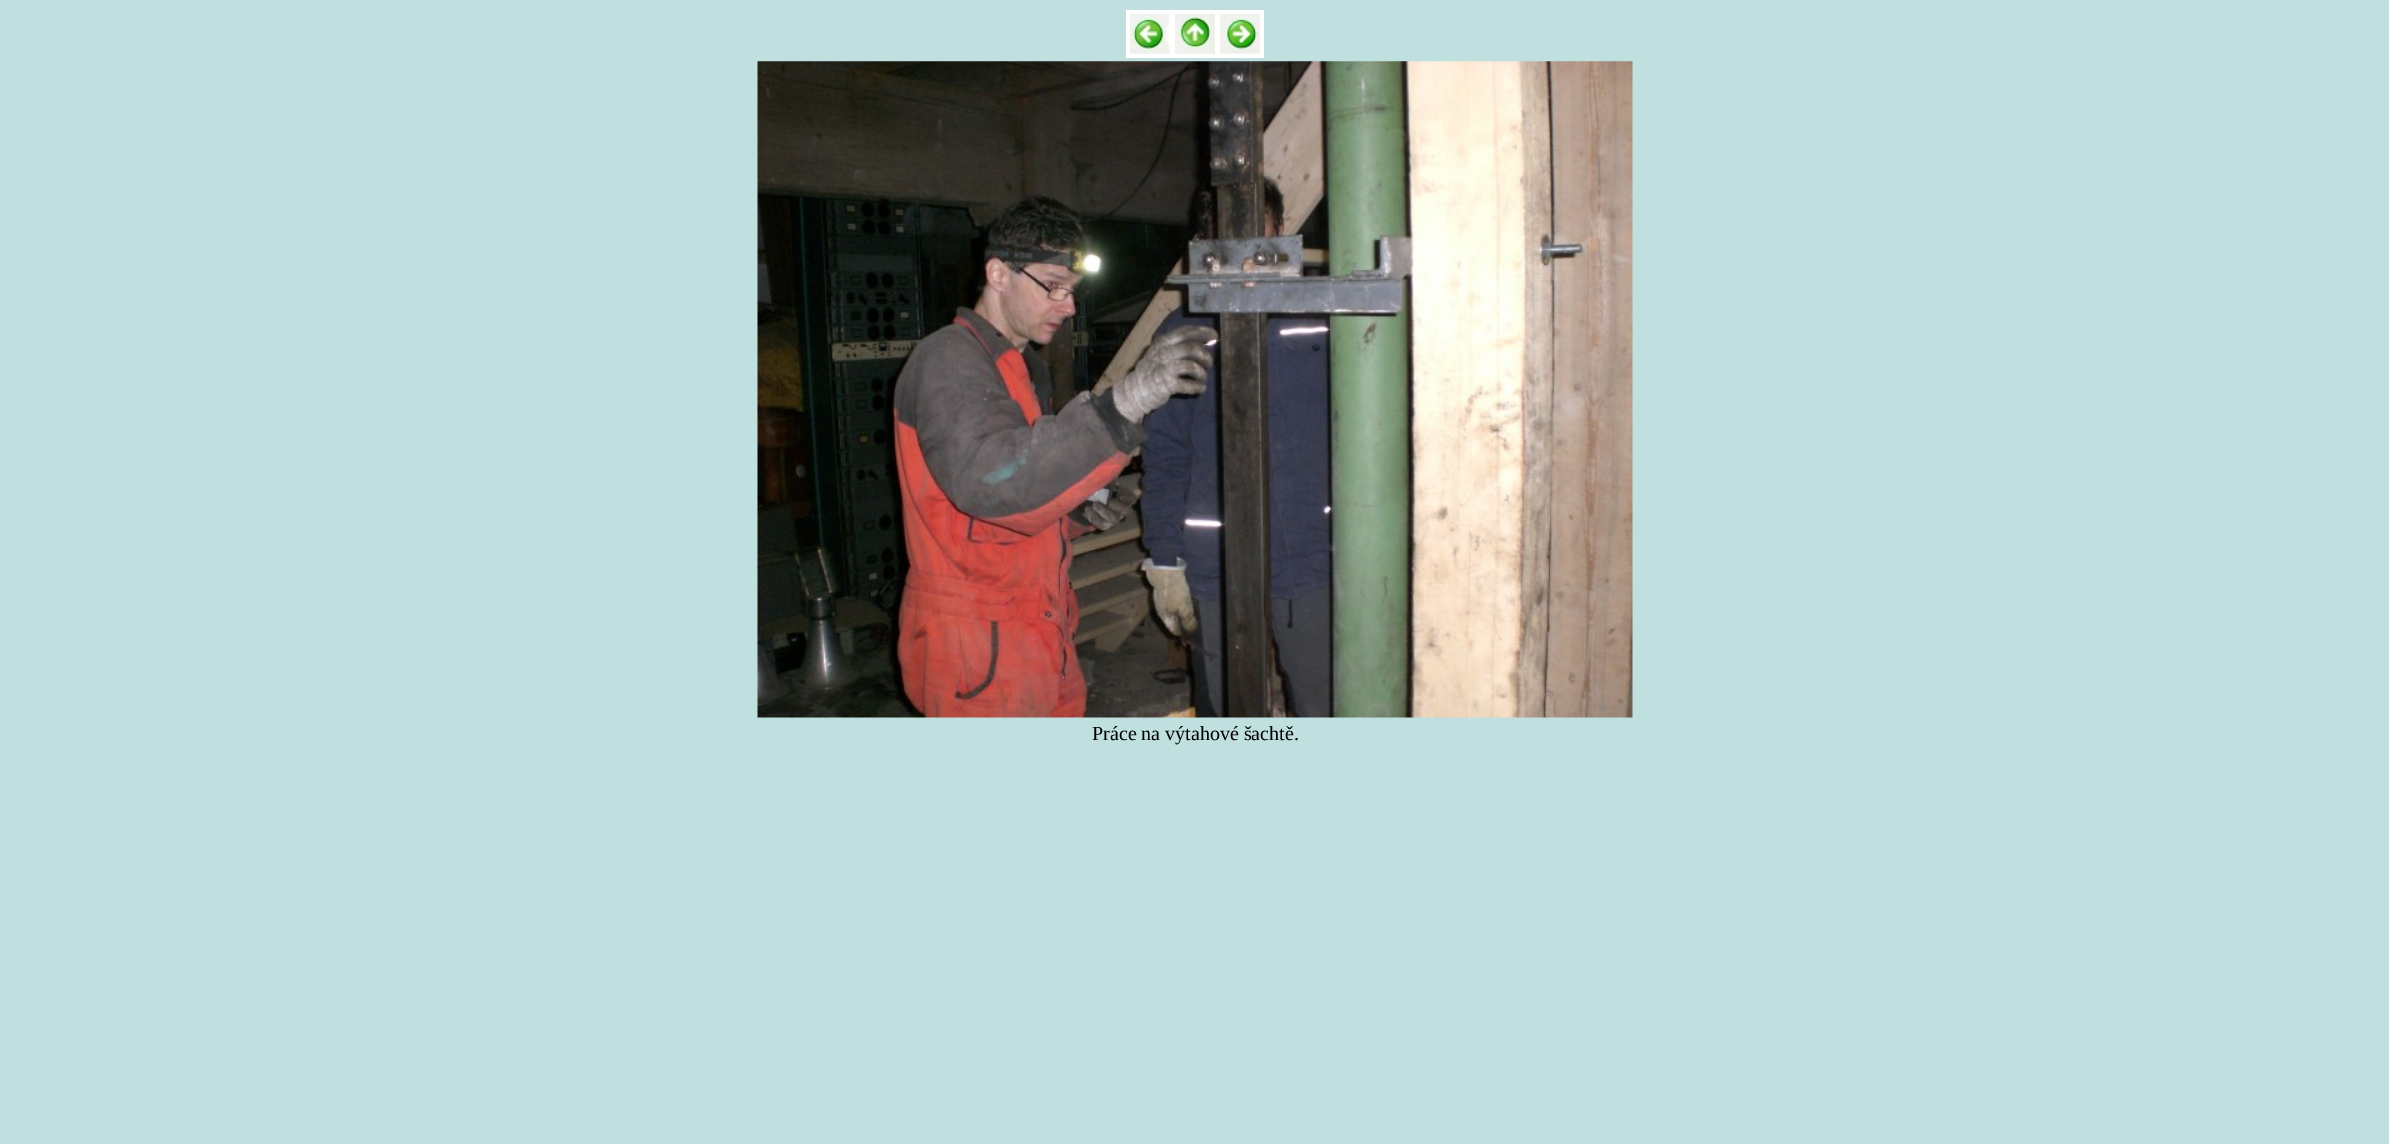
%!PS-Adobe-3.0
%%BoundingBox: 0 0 2389 1144
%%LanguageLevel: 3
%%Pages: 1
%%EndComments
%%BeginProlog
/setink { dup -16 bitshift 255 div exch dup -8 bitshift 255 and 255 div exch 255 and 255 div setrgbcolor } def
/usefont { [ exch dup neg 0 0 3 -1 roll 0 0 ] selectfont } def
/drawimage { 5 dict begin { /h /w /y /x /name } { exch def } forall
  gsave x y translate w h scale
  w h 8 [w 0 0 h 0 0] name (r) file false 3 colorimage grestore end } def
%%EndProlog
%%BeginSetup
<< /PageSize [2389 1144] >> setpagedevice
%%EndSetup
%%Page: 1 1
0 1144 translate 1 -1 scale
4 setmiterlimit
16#C0E0E0 setink
0 0 2389 1144 rectfill
16#FFFFFF setink
1126 10 138 48 rectfill
(img1.raw) 1130 13 40 41 drawimage
(img2.raw) 1175 13 40 41 drawimage
(img3.raw) 1220 13 40 41 drawimage
(img4.raw) 757 61 876 657 drawimage
/LiberationSerif-Regular 20 usefont
16#000000 setink
1092 740 moveto (Práce na výtahové šachtě.) show
showpage
%%EOF
